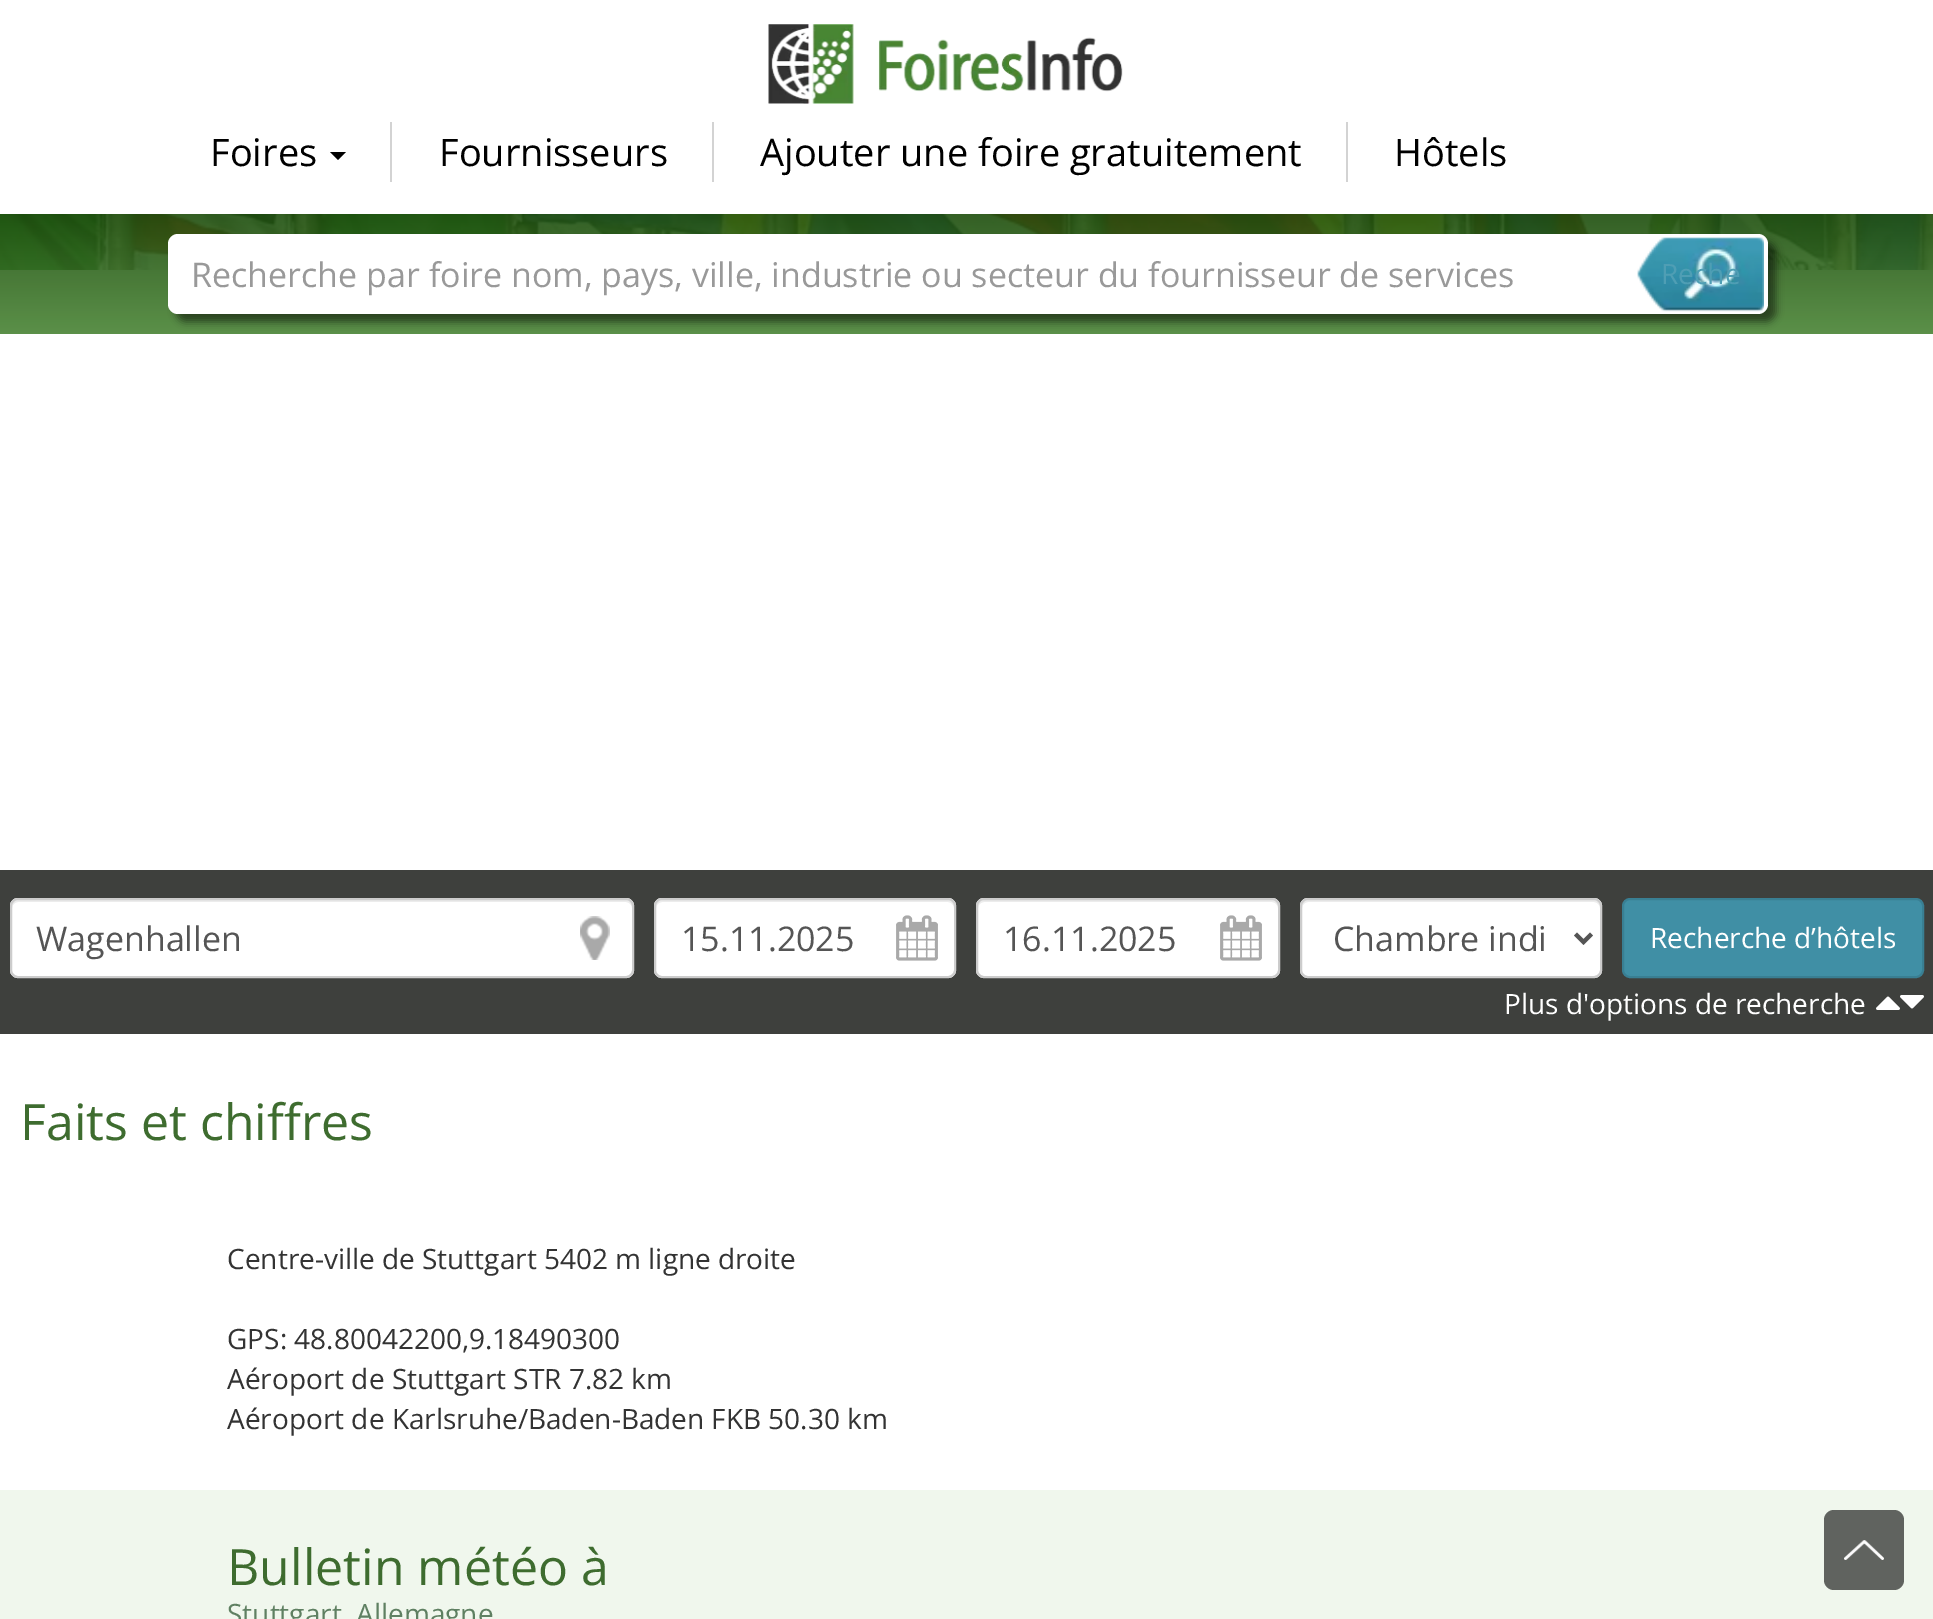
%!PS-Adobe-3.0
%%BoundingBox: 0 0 1933 1619
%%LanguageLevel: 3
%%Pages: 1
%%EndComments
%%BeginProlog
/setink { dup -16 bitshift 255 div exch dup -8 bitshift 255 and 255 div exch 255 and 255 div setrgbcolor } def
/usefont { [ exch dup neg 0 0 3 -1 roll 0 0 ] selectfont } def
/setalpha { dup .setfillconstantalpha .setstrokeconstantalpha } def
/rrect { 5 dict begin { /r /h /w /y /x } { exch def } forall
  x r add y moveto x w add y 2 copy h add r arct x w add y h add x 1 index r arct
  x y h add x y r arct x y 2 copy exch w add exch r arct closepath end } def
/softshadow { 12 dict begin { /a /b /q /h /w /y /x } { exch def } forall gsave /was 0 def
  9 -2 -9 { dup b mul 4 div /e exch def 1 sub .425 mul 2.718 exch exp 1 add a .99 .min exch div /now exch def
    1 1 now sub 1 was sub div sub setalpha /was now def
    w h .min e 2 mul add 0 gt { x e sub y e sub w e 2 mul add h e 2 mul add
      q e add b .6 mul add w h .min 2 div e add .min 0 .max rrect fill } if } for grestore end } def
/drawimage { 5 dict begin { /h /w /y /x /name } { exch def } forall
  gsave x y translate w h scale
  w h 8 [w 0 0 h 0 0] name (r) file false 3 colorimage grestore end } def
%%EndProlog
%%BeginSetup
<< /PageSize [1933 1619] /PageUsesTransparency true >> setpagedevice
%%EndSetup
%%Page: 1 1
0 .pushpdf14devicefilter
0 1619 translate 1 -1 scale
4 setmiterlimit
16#FFFFFF setink
0 0 1933 1619 rectfill
(img1.raw) 768 24 355 80 drawimage
/OpenSans-Regular 38 usefont
16#000000 setink
210 166 moveto (Foires) show
330 152 moveto 346 152 lineto 338 160 lineto closepath fill
16#D3D3D3 setink
390 122 2 60 rectfill
16#000000 setink
439 166 moveto (Fournisseurs) show
16#D3D3D3 setink
712 122 2 60 rectfill
16#000000 setink
760 166 moveto (Ajouter une foire gratuitement) show
16#D3D3D3 setink
1346 122 2 60 rectfill
16#000000 setink
1394 166 moveto (Hôtels) show
(img3.raw) 0 214 1933 56 drawimage
0.9 setalpha
gsave 0 214 moveto 1933 214 lineto 1933 334 lineto 0 334 lineto closepath clip newpath
<< /ShadingType 2 /ColorSpace /DeviceRGB /Coords [967 214 967 334] /Extend [true true] /Function << /FunctionType 2 /Domain [0 1] /C0 [0.122 0.314 0.055] /C1 [0.286 0.518 0.208] /N 1 >> >> shfill grestore
1 setalpha
176 242 1600 80 10 4 0.5 softshadow
16#FFFFFF setink
168 234 1600 80 10 rrect fill
/OpenSans-Regular 34 usefont
16#999999 setink
191 287 moveto (Recherche par foire nom, pays, ville, industrie ou secteur du fournisseur de services) show
(img2.raw) 1637 237 127 75 drawimage
/OpenSans-Regular 28 usefont
16#4F9EB4 setink
1661 284 moveto (Reche) show
16#3E403D setink
0 870 1933 164 rectfill
16#FFFFFF setink
10 898 624 80 8 rrect fill
(img4.raw) 580 916 30 44 drawimage
16#ECECEC setink
18 902 moveto 626 902 lineto 629 902 632 905 632 908 curveto 632 906 lineto 632 903 629 900 626 900 curveto 18 900 lineto 15 900 12 903 12 906 curveto 12 908 lineto 12 905 15 902 18 902 curveto closepath fill
16#CCCCCC setink
2 setlinewidth
11 899 622 78 7 rrect stroke
/OpenSans-Regular 34 usefont
16#555555 setink
36 951 moveto (Wagenhallen) show
16#FFFFFF setink
654 898 302 80 8 rrect fill
(img5.raw) 896 915 42 46 drawimage
16#ECECEC setink
662 902 moveto 948 902 lineto 951 902 954 905 954 908 curveto 954 906 lineto 954 903 951 900 948 900 curveto 662 900 lineto 659 900 656 903 656 906 curveto 656 908 lineto 656 905 659 902 662 902 curveto closepath fill
16#CCCCCC setink
655 899 300 78 7 rrect stroke
16#555555 setink
681 951 moveto (15.11.2025) show
16#FFFFFF setink
976 898 304 80 8 rrect fill
(img5.raw) 1220 915 42 46 drawimage
16#ECECEC setink
984 902 moveto 1272 902 lineto 1275 902 1278 905 1278 908 curveto 1278 906 lineto 1278 903 1275 900 1272 900 curveto 984 900 lineto 981 900 978 903 978 906 curveto 978 908 lineto 978 905 981 902 984 902 curveto closepath fill
16#CCCCCC setink
977 899 302 78 7 rrect stroke
16#555555 setink
1003 951 moveto (16.11.2025) show
16#FFFFFF setink
1300 898 302 80 8 rrect fill
16#ECECEC setink
1308 902 moveto 1594 902 lineto 1597 902 1600 905 1600 908 curveto 1600 906 lineto 1600 903 1597 900 1594 900 curveto 1308 900 lineto 1305 900 1302 903 1302 906 curveto 1302 908 lineto 1302 905 1305 902 1308 902 curveto closepath fill
16#CCCCCC setink
1301 899 300 78 7 rrect stroke
16#555555 setink
4 setlinewidth
1575.5 934 moveto 1583.5 942 lineto 1591.5 934 lineto stroke
gsave
1334 914 210 50 rectclip
1333 951 moveto (Chambre indi) show
grestore
16#408FA5 setink
1623 899 300 78 7 rrect gsave fill grestore
16#397F93 setink
2 setlinewidth
stroke
/OpenSans-Regular 28 usefont
16#FFFFFF setink
1650 948 moveto (Recherche d’hôtels) show
1504 1014 moveto (Plus d'options de recherche) show
(img6.raw) 1876 996 24 14 drawimage
(img7.raw) 1900 995 24 14 drawimage
/OpenSans-Regular 50 usefont
16#3E6C2F setink
20 1140 moveto (Faits et chiffres) show
/OpenSans-Regular 28 usefont
16#333333 setink
[
    [(Centre-ville de Stuttgart 5402 m ligne droite) 227 1269]
    [(GPS: 48.80042200,9.18490300) 227 1349]
    [(Aéroport de Stuttgart STR 7.82 km) 227 1389]
    [(Aéroport de Karlsruhe/Baden-Baden FKB 50.30 km) 227 1429]
] { aload pop moveto show } forall
16#F0F7ED setink
0 1490 1933 129 rectfill
/OpenSans-Regular 50 usefont
16#3E6C2F setink
227 1585 moveto (Bulletin météo à) show
/OpenSans-Regular 28 usefont
16#5F8062 setink
227 1624 moveto (Stuttgart, Allemagne) show
16#60635F setink
1824 1510 80 80 10 rrect fill
(img8.raw) 1844 1540 40 20 drawimage
.poppdf14devicefilter showpage
%%EOF
